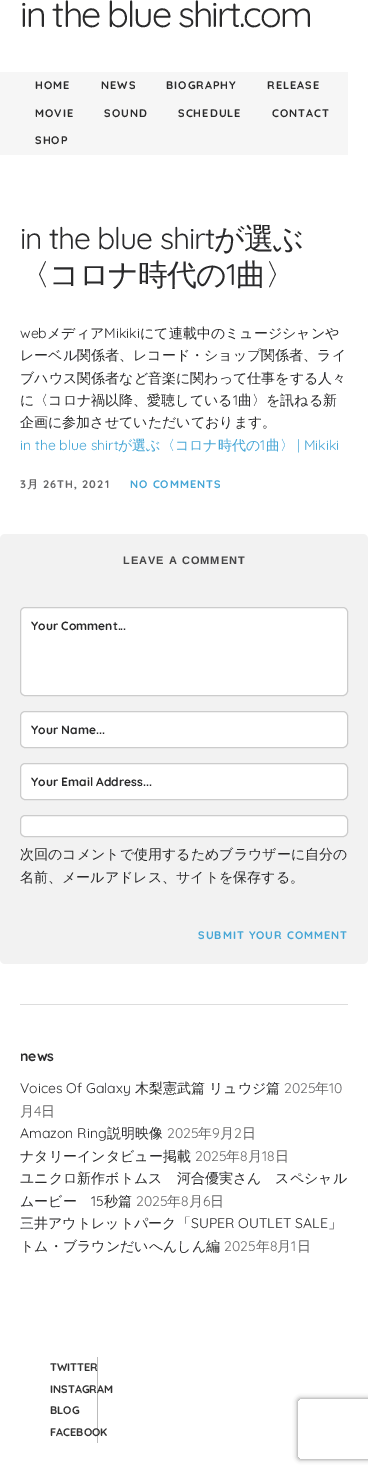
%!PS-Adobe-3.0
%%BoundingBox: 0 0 368 1473
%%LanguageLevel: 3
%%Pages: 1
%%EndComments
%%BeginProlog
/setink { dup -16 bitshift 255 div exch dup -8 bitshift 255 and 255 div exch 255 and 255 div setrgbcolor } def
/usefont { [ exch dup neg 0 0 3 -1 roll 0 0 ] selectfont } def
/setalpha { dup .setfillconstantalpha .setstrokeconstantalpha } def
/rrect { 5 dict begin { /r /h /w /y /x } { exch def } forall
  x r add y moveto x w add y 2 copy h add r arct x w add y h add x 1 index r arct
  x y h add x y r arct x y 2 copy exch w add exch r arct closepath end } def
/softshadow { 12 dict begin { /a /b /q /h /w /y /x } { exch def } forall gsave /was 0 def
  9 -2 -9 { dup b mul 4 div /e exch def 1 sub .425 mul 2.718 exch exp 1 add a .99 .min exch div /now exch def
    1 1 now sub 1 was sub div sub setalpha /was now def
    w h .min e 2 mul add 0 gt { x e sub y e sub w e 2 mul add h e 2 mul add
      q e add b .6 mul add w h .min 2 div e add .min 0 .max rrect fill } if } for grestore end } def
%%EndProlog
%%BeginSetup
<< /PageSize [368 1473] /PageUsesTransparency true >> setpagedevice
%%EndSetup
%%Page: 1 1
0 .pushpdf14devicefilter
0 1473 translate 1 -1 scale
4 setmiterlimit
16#FFFFFF setink
0 0 368 1473 rectfill
/Quicksand-Regular 36 usefont
16#2A2A2B setink
20 27 moveto -2 0 (in the blue shirt.com) ashow
16#F6F6F6 setink
0 72 348 83 rectfill
/Quicksand-Bold 11 usefont
16#2A2A2B setink
35 89 moveto 1 0 (HOME) ashow
101 89 moveto 1 0 (NEWS) ashow
166 89 moveto 1 0 (BIOGRAPHY) ashow
267 89 moveto 1 0 (RELEASE) ashow
35 117 moveto 1 0 (MOVIE) ashow
104 117 moveto 1 0 (SOUND) ashow
178 117 moveto 1 0 (SCHEDULE) ashow
272 117 moveto 1 0 (CONTACT) ashow
35 144 moveto 1 0 (SHOP) ashow
/Quicksand-Regular 30 usefont
20 249 moveto -1 0 (in the blue shirt) ashow
/WenQuanYiZenHei-Medium 30 usefont
214 249 moveto -1 0 (が選ぶ) ashow
20 285 moveto -1 0 (〈コロナ時代の) ashow
/Quicksand-Regular 30 usefont
226 285 moveto -1 0 (1) ashow
/WenQuanYiZenHei-Medium 30 usefont
236 285 moveto -1 0 (曲〉) ashow
/Quicksand-Regular 14 usefont
20 338 moveto (web) show
/WenQuanYiZenHei-Medium 14 usefont
47 338 moveto (メディア) show
/Quicksand-Regular 14 usefont
104 338 moveto (Mikiki) show
/WenQuanYiZenHei-Medium 14 usefont
[
    [(にて連載中のミュージシャンや) 140 338]
    [(レーベル関係者、レコード・ショップ関係者、ライ) 20 360]
    [(ブハウス関係者など音楽に関わって仕事をする人々) 20 383]
    [(に〈コロナ禍以降、愛聴している) 20 405]
] { aload pop moveto show } forall
/Quicksand-Regular 14 usefont
233 405 moveto (1) show
/WenQuanYiZenHei-Medium 14 usefont
238 405 moveto (曲〉を訊ねる新) show
20 427 moveto (企画に参加させていただいております。) show
/Quicksand-Regular 14 usefont
16#44A5D5 setink
20 450 moveto (in the blue shirt) show
/WenQuanYiZenHei-Medium 14 usefont
118 450 moveto (が選ぶ〈コロナ時代の) show
/Quicksand-Regular 14 usefont
260 450 moveto (1) show
/WenQuanYiZenHei-Medium 14 usefont
266 450 moveto (曲〉) show
/Quicksand-Regular 14 usefont
297 450 moveto (| Mikiki) show
/Quicksand-Bold 11 usefont
16#676768 setink
20 488 moveto 1 0 (3) ashow
/WenQuanYiZenHei-Bold 11 usefont
27 488 moveto 1 0 (月) ashow
/Quicksand-Bold 11 usefont
43 488 moveto 1 0 (26TH, 2021) ashow
16#44A5D5 setink
130 488 moveto 1 0 (NO COMMENTS) ashow
16#F2F2F2 setink
0 534 368 430 5 rrect fill
/LiberationSans-Bold 11 usefont
16#454546 setink
123 564 moveto 1 0 (LEAVE A COMMENT) ashow
16#FFFFFF setink
20.5 607.5 327 88 4.5 rrect gsave fill grestore
16#CCCCCC setink
stroke
/Quicksand-Bold 12 usefont
16#2A2A2B setink
31 630 moveto (Your Comment...) show
16#FFFFFF setink
20.5 711.5 327 36 4.5 rrect gsave fill grestore
16#CCCCCC setink
stroke
16#2A2A2B setink
31 734 moveto (Your Name...) show
16#FFFFFF setink
20.5 763.5 327 36 4.5 rrect gsave fill grestore
16#CCCCCC setink
stroke
16#2A2A2B setink
31 786 moveto (Your Email Address...) show
16#FFFFFF setink
20.5 815.5 327 21 4.5 rrect gsave fill grestore
16#CCCCCC setink
stroke
/WenQuanYiZenHei-Medium 14 usefont
16#2A2A2B setink
20 859 moveto (次回のコメントで使用するためブラウザーに自分の) show
20 882 moveto (名前、メールアドレス、サイトを保存する。) show
/Quicksand-Bold 11 usefont
16#44A5D5 setink
198 939 moveto 1 0 (SUBMIT YOUR COMMENT) ashow
16#DDDDDD setink
20 1004 328 1 rectfill
/Quicksand-Bold 14 usefont
16#2A2A2B setink
20 1061 moveto (news) show
/Quicksand-Regular 14 usefont
20 1093 moveto (Voices Of Galaxy) show
/WenQuanYiZenHei-Medium 14 usefont
135 1093 moveto (木梨憲武篇) show
209 1093 moveto (リュウジ篇) show
/Quicksand-Regular 14 usefont
16#676768 setink
284 1093 moveto (2025) show
/WenQuanYiZenHei-Medium 14 usefont
315 1093 moveto (年) show
/Quicksand-Regular 14 usefont
329 1093 moveto (10) show
/WenQuanYiZenHei-Medium 14 usefont
20 1116 moveto (月) show
/Quicksand-Regular 14 usefont
34 1116 moveto (4) show
/WenQuanYiZenHei-Medium 14 usefont
41 1116 moveto (日) show
/Quicksand-Regular 14 usefont
16#2A2A2B setink
20 1138 moveto (Amazon Ring) show
/WenQuanYiZenHei-Medium 14 usefont
107 1138 moveto (説明映像) show
/Quicksand-Regular 14 usefont
16#676768 setink
167 1138 moveto (2025) show
/WenQuanYiZenHei-Medium 14 usefont
198 1138 moveto (年) show
/Quicksand-Regular 14 usefont
212 1138 moveto (9) show
/WenQuanYiZenHei-Medium 14 usefont
220 1138 moveto (月) show
/Quicksand-Regular 14 usefont
234 1138 moveto (2) show
/WenQuanYiZenHei-Medium 14 usefont
242 1138 moveto (日) show
16#2A2A2B setink
20 1161 moveto (ナタリーインタビュー掲載) show
/Quicksand-Regular 14 usefont
16#676768 setink
195 1161 moveto (2025) show
/WenQuanYiZenHei-Medium 14 usefont
226 1161 moveto (年) show
/Quicksand-Regular 14 usefont
240 1161 moveto (8) show
/WenQuanYiZenHei-Medium 14 usefont
248 1161 moveto (月) show
/Quicksand-Regular 14 usefont
262 1161 moveto (18) show
/WenQuanYiZenHei-Medium 14 usefont
275 1161 moveto (日) show
16#2A2A2B setink
20 1183 moveto (ユニクロ新作ボトムス　河合優実さん　スペシャル) show
20 1206 moveto (ムービー) show
/Quicksand-Regular 14 usefont
91 1206 moveto (15) show
/WenQuanYiZenHei-Medium 14 usefont
104 1206 moveto (秒篇) show
/Quicksand-Regular 14 usefont
16#676768 setink
136 1206 moveto (2025) show
/WenQuanYiZenHei-Medium 14 usefont
167 1206 moveto (年) show
/Quicksand-Regular 14 usefont
181 1206 moveto (8) show
/WenQuanYiZenHei-Medium 14 usefont
189 1206 moveto (月) show
/Quicksand-Regular 14 usefont
203 1206 moveto (6) show
/WenQuanYiZenHei-Medium 14 usefont
210 1206 moveto (日) show
16#2A2A2B setink
20 1228 moveto (三井アウトレットパーク「) show
/Quicksand-Regular 14 usefont
191 1228 moveto (SUPER OUTLET SALE) show
/WenQuanYiZenHei-Medium 14 usefont
328 1228 moveto (」) show
20 1251 moveto (トム・ブラウンだいへんしん編) show
/Quicksand-Regular 14 usefont
16#676768 setink
224 1251 moveto (2025) show
/WenQuanYiZenHei-Medium 14 usefont
256 1251 moveto (年) show
/Quicksand-Regular 14 usefont
270 1251 moveto (8) show
/WenQuanYiZenHei-Medium 14 usefont
277 1251 moveto (月) show
/Quicksand-Regular 14 usefont
291 1251 moveto (1) show
/WenQuanYiZenHei-Medium 14 usefont
297 1251 moveto (日) show
16#BBBBBB setink
97 1357 1 86 rectfill
/Quicksand-Bold 11 usefont
16#333333 setink
[
    [(TWITTER) 50 1371]
    [(INSTAGRAM) 50 1393]
    [(BLOG) 50 1414]
    [(FACEBOOK) 50 1436]
] { aload pop moveto show } forall
gsave
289 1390 moveto 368 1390 lineto 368 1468 lineto 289 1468 lineto closepath 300 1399 moveto 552 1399 lineto 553 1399 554 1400 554 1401 curveto 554 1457 lineto 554 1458 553 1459 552 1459 curveto 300 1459 lineto 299 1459 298 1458 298 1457 curveto 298 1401 lineto 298 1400 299 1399 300 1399 curveto closepath eoclip newpath
16#808080 setink
298 1399 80 60 2 2.5 1 softshadow
grestore
.poppdf14devicefilter showpage
%%EOF
